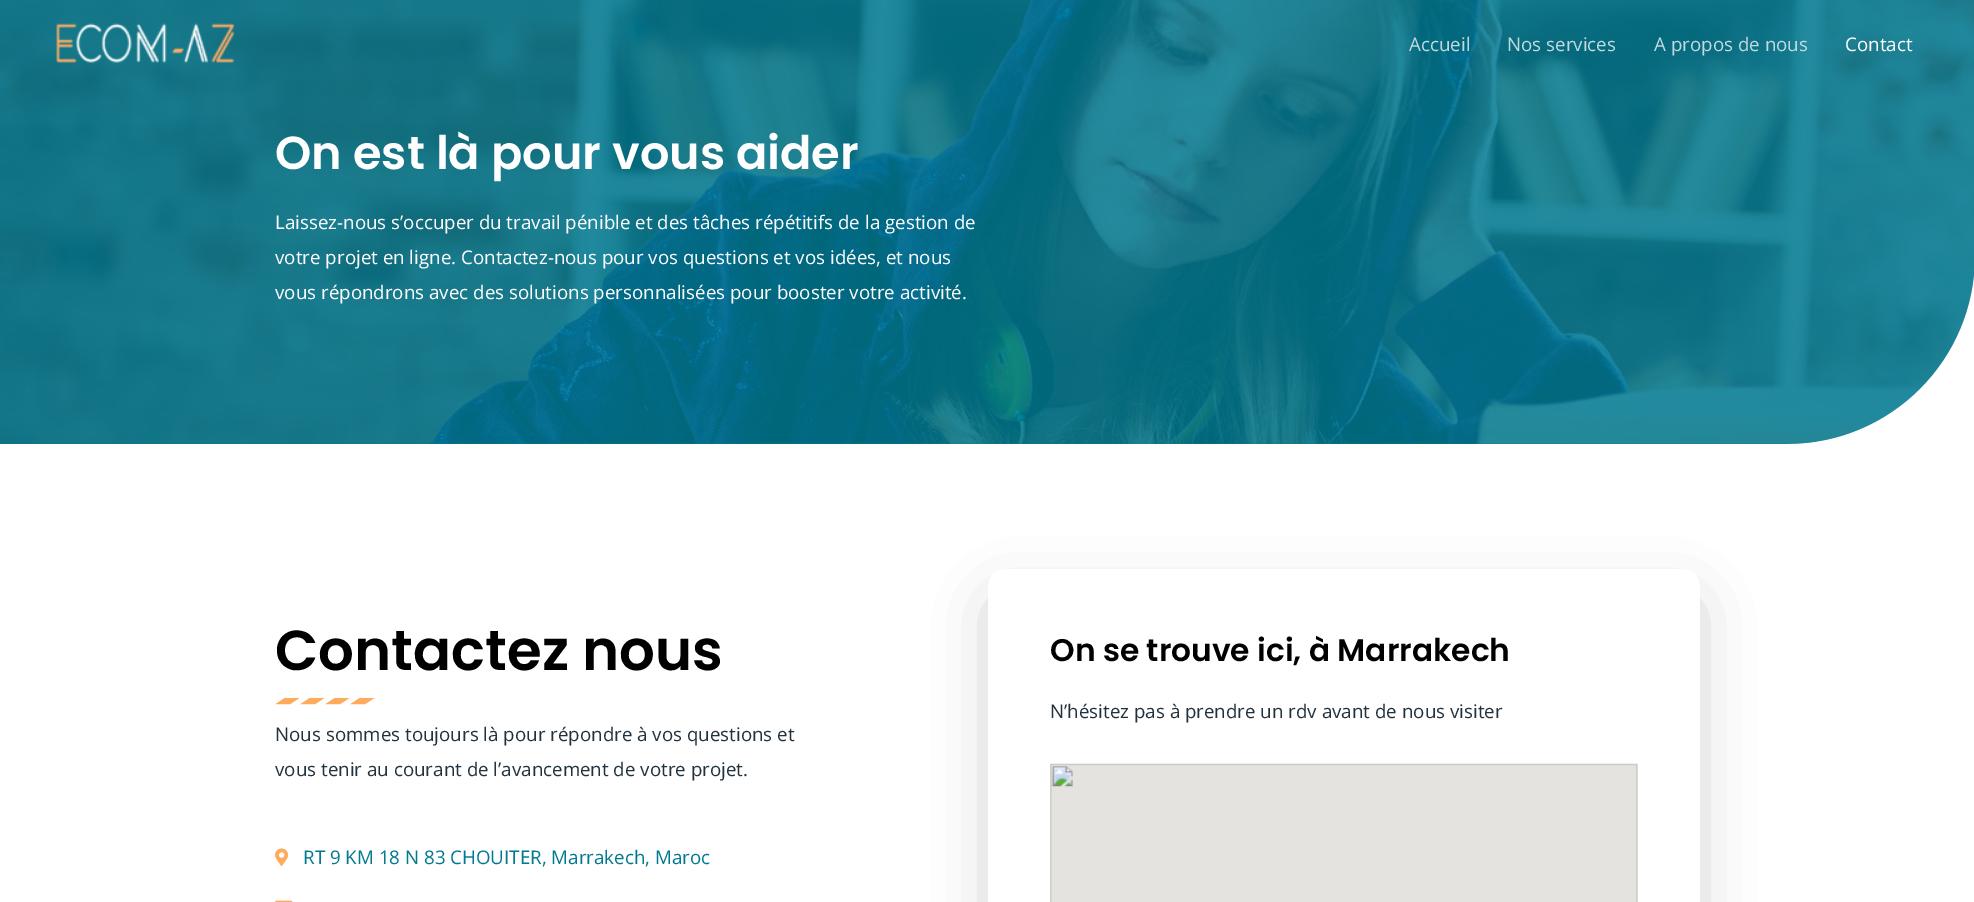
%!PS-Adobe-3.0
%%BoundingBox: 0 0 1974 902
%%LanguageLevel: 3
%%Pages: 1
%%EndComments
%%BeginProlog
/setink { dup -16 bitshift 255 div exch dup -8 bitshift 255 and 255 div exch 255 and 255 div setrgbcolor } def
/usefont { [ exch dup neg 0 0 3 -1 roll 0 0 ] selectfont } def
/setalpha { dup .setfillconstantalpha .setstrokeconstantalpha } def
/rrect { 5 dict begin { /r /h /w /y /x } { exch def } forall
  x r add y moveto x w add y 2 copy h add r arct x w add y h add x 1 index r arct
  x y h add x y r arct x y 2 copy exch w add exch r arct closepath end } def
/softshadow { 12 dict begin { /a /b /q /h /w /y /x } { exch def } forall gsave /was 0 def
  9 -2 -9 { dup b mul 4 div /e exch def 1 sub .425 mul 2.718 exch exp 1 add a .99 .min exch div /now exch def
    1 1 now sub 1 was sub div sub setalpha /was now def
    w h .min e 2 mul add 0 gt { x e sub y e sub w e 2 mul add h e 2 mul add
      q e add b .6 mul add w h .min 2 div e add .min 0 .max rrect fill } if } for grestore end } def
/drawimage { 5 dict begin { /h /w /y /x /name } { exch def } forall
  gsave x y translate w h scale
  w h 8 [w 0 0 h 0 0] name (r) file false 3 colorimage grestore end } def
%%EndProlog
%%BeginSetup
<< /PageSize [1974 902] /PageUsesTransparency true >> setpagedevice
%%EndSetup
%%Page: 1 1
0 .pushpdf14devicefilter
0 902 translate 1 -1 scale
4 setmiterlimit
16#FFFFFF setink
0 0 1974 902 rectfill
16#007991 setink
0 0 moveto 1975 0 lineto 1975 256 lineto 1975 360 1891 444 1787 444 curveto 0 444 lineto closepath fill
(img2.raw) 0 0 1974 444 drawimage
(img1.raw) 56 23 179 40 drawimage
/OpenSans-Regular 18.75 usefont
16#C0DADF setink
[
    [(Accueil) 1409 51]
    [(Nos services) 1507 51]
    [(A propos de nous) 1654 51]
] { aload pop moveto show } forall
16#FFFFFF setink
1845 51 moveto (Contact) show
/Poppins-SemiBold 46.25 usefont
275 169 moveto (On est là pour vous aider) show
/OpenSans-Regular 18.75 usefont
[
    [(Laissez-nous s’occuper du travail pénible et des tâches répétitifs de la gestion de) 275 229]
    [(votre projet en ligne. Contactez-nous pour vos questions et vos idées, et nous) 275 264]
    [(vous répondrons avec des solutions personnalisées pour booster votre activité.) 275 299]
] { aload pop moveto show } forall
/Poppins-SemiBold 56.25 usefont
16#000000 setink
275 670 moveto (Contactez nous) show
(img3.raw) 275 697 100 8 drawimage
/OpenSans-Regular 18.75 usefont
16#22323D setink
275 741 moveto (Nous sommes toujours là pour répondre à vos questions et) show
275 776 moveto (vous tenir au courant de l’avancement de votre projet.) show
(img4.raw) 275 848 14 18 drawimage
16#007991 setink
303 864 moveto (RT 9 KM 18 N 83 CHOUITER, Marrakech, Maroc) show
(img5.raw) 275 900 18 2 drawimage
gsave
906 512 moveto 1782 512 lineto 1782 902 lineto 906 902 lineto closepath 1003 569 moveto 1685 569 lineto 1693.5 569 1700 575.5 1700 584 curveto 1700 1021 lineto 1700 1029.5 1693.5 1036 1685 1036 curveto 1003 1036 lineto 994.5 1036 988 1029.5 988 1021 curveto 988 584 lineto 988 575.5 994.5 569 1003 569 curveto closepath eoclip newpath
16#000000 setink
1000 606 688 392 2.5 31 0.25 softshadow
grestore
/Poppins-SemiBold 31.25 usefont
16#000000 setink
1050 661 moveto (On se trouve ici, à Marrakech) show
/OpenSans-Regular 18.75 usefont
16#22323D setink
1050 718 moveto (N’hésitez pas à prendre un rdv avant de nous visiter) show
(img6.raw) 1050 763 588 139 drawimage
.poppdf14devicefilter showpage
%%EOF
